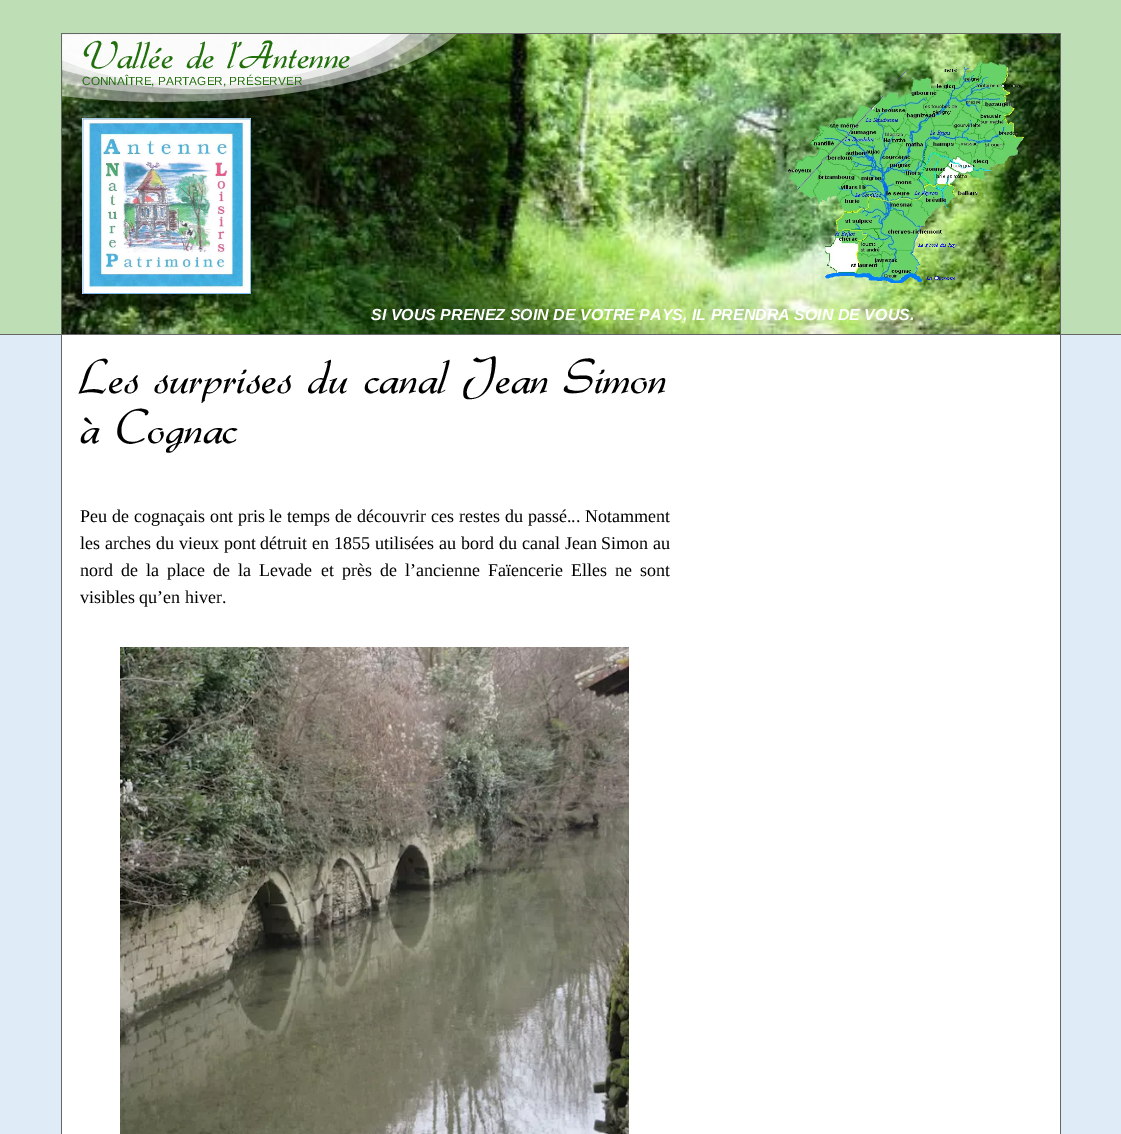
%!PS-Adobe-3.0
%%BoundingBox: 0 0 1121 1134
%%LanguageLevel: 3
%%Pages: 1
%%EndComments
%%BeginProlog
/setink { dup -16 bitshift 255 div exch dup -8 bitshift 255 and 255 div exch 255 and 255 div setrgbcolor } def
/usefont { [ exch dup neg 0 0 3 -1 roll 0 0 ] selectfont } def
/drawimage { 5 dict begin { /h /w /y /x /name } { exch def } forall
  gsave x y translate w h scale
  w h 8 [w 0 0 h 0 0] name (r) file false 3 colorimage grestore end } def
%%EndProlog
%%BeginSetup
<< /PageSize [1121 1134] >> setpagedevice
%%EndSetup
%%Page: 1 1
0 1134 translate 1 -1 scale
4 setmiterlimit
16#BEDFB6 setink
0 0 1121 1134 rectfill
(img1.raw) 62 34 998 300 drawimage
[
    [61 33 1000 1 16#666666]
    [1060 33 1 301 16#666666]
    [61 33 1 301 16#666666]
] { aload pop setink rectfill } forall
(img2.raw) 62 34 395 68 drawimage
/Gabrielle-Regular 40 usefont
16#21700C setink
82 68 moveto (Vallée de l’Antenne) show
/LiberationSans-Regular 11.8 usefont
82 85 moveto (CONNAÎTRE, PARTAGER, PRÉSERVER) show
(img3.raw) 788 60 236 223 drawimage
(img4.raw) 82 118 169 176 drawimage
/LiberationSans-BoldItalic 16 usefont
16#FFFFFF setink
371 320 moveto (SI VOUS PRENEZ SOIN DE VOTRE PAYS, IL PRENDRA SOIN DE VOUS.) show
[
    [0 335 1121 799 16#E0EBF8]
    [0 334 1121 1 16#666666]
    [62 335 998 799 16#FFFFFF]
    [1060 335 1 799 16#666666]
    [61 335 1 799 16#666666]
] { aload pop setink rectfill } forall
/Gabrielle-Regular 50.4 usefont
16#000000 setink
80 393 moveto (Les surprises du canal Jean Simon) show
80 443 moveto (à Cognac) show
/LiberationSerif-Regular 18 usefont
80 522 moveto 0.4 0 32 (Peu de cognaçais ont pris le temps de découvrir ces restes du passé... Notamment) widthshow
80 549 moveto 0.4 0 32 (les arches du vieux pont détruit en 1855 utilisées au bord du canal Jean Simon au) widthshow
80 576 moveto 3.6 0 32 (nord de la place de la Levade et près de l’ancienne Faïencerie Elles ne sont) widthshow
80 603 moveto (visibles qu’en hiver.) show
(img5.raw) 120 647 509 487 drawimage
showpage
%%EOF
